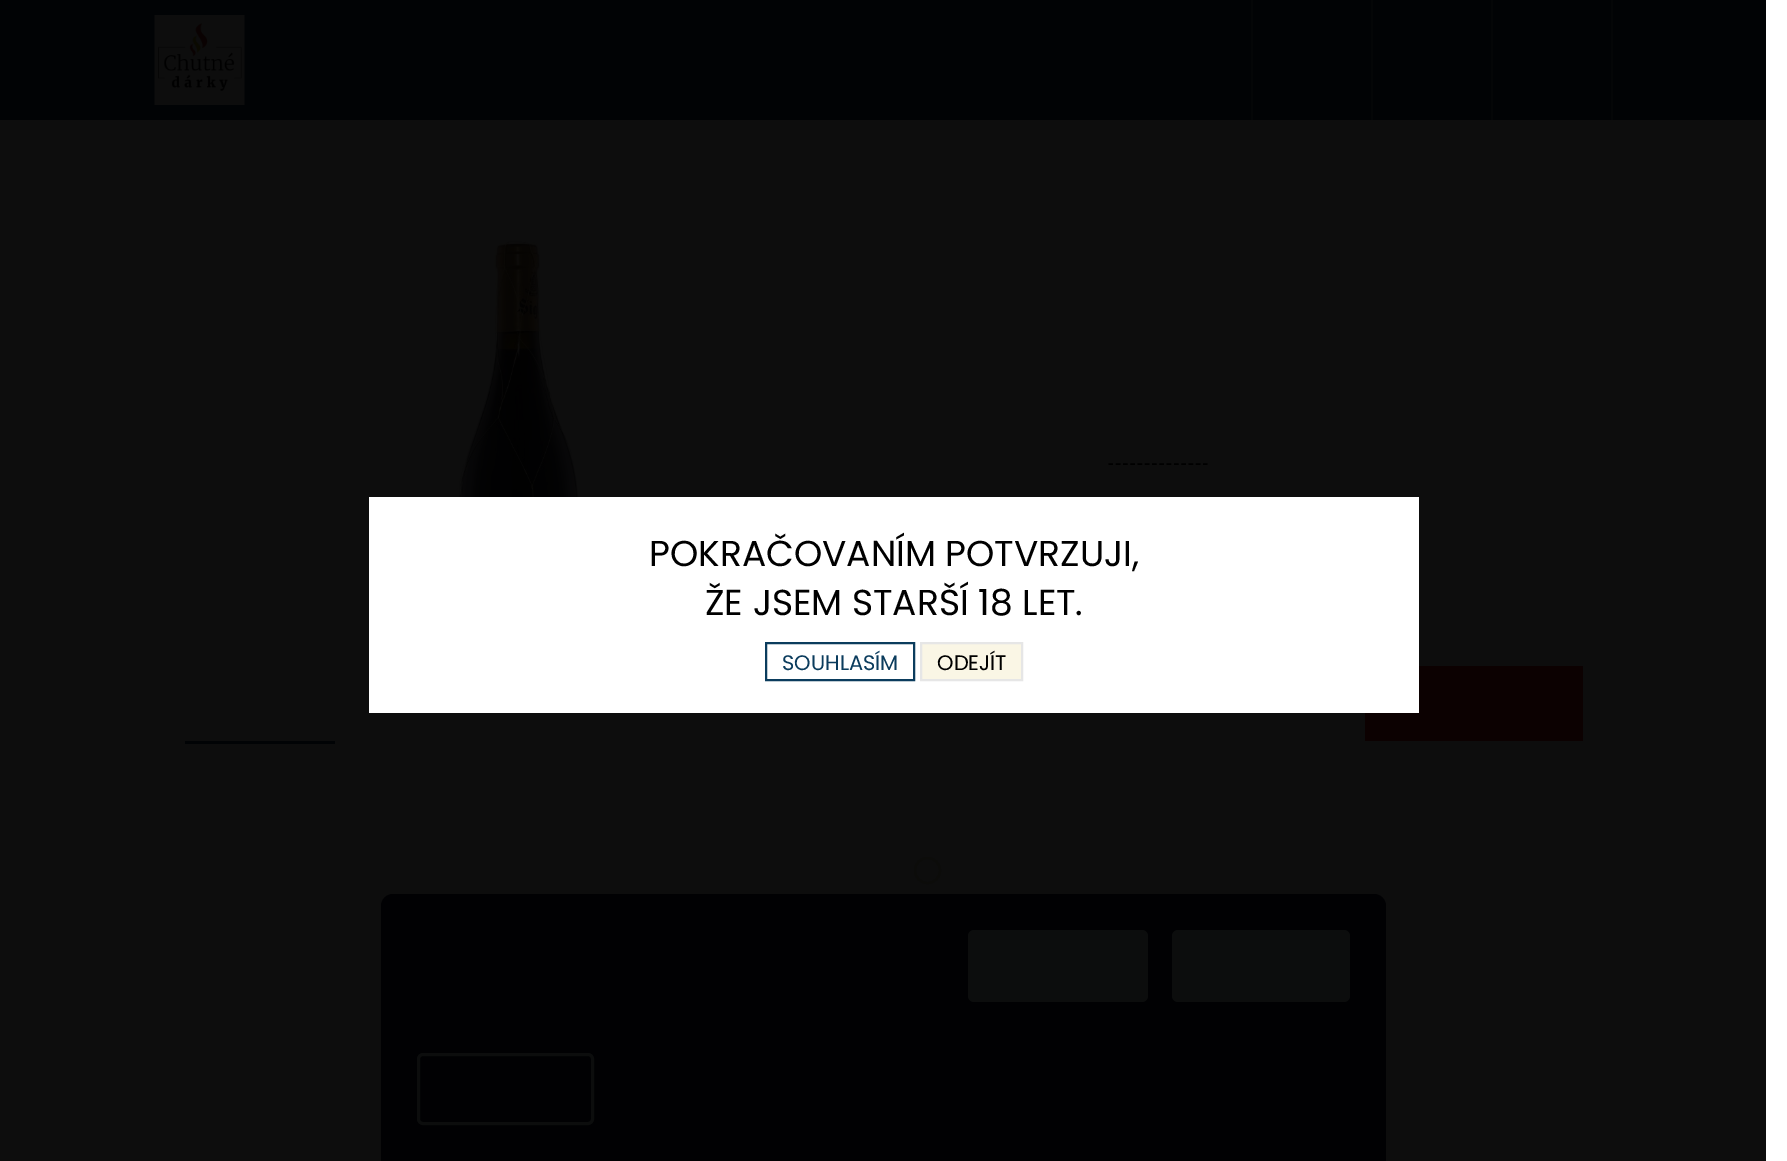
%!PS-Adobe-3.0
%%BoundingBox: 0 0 1787 1161
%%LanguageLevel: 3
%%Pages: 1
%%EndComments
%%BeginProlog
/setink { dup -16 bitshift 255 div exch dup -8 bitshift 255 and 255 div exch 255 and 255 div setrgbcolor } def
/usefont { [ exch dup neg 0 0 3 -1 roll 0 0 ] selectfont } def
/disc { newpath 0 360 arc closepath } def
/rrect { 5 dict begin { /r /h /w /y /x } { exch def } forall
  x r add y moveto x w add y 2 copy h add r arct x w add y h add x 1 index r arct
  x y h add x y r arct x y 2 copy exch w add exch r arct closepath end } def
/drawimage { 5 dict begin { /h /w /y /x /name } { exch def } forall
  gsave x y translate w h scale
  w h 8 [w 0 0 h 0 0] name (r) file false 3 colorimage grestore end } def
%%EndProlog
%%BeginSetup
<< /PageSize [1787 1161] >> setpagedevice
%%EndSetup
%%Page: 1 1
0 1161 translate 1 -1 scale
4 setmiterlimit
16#FFFFFF setink
0 0 1787 1161 rectfill
16#0D0D0D setink
0 120 1766 1041 rectfill
16#010305 setink
0 0 1766 120 rectfill
(img1.raw) 154 15 91 90 drawimage
[
    [1611 0 2 120 16#040607]
    [1251 0 2 120 16#040607]
    [1371 0 2 120 16#040607]
    [1491 0 2 120 16#040607]
] { aload pop setink rectfill } forall
(img2.raw) 456 241 126 256 drawimage
16#010305 setink
185 741 150 3 rectfill
16#000000 setink
1.5 setlinewidth
[4.5 2.78] 0 setdash
1108.5 464 moveto 1207.5 464 lineto stroke
16#0C0101 setink
1365 666 218 75 rectfill
16#0C0C0A setink
2 setlinewidth
[] 0 setdash
927.5 870.5 12.5 disc stroke
16#FFFFFF setink
369 497 1050 216 rectfill
/Poppins-Regular 36 usefont
16#000000 setink
649 566 moveto (POKRAČOVANÍM POTVRZUJI,) show
705 615 moveto (ŽE JSEM STARŠÍ 18 LET.) show
16#0B3C5D setink
766 643 148 37 rectstroke
/Poppins-Regular 21 usefont
782 670 moveto (SOUHLASÍM) show
16#FAF6E5 setink
921 643 moveto 1022 643 lineto 1022 680 lineto 921 680 lineto closepath gsave fill grestore
16#E6E6E6 setink
stroke
16#000000 setink
937 670 moveto (ODEJÍT) show
16#010103 setink
393 894 moveto 1374 894 lineto 1380.5 894 1386 899.5 1386 906 curveto 1386 1161 lineto 381 1161 lineto 381 906 lineto 381 899.5 386.5 894 393 894 curveto closepath fill
16#0C0D0D setink
968 930 180 72 6 rrect fill
1172 930 178 72 6 rrect fill
3 setlinewidth
418.5 1054.5 174 69 4.5 rrect stroke
showpage
%%EOF
